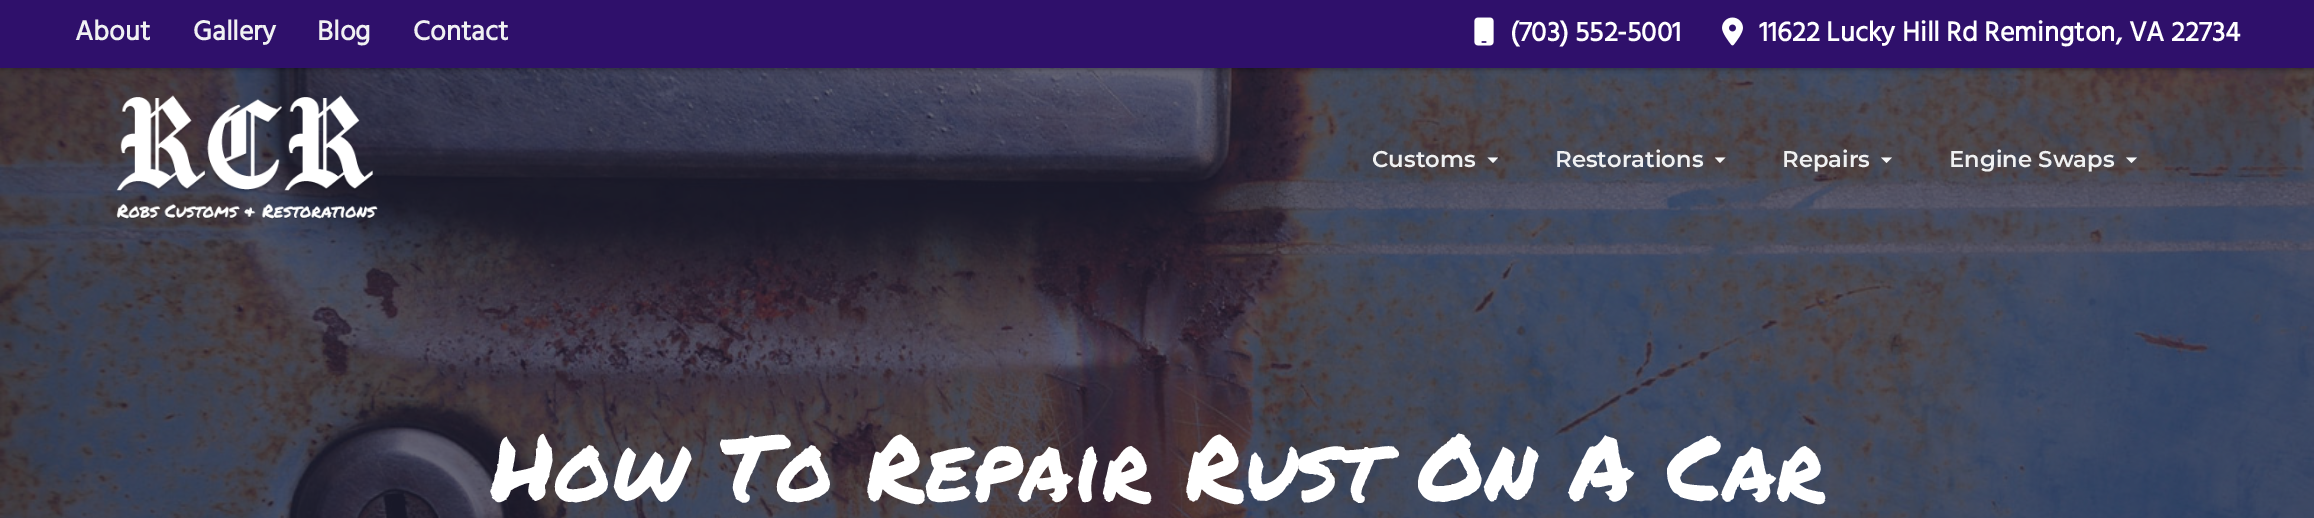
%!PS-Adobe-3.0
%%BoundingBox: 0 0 2314 518
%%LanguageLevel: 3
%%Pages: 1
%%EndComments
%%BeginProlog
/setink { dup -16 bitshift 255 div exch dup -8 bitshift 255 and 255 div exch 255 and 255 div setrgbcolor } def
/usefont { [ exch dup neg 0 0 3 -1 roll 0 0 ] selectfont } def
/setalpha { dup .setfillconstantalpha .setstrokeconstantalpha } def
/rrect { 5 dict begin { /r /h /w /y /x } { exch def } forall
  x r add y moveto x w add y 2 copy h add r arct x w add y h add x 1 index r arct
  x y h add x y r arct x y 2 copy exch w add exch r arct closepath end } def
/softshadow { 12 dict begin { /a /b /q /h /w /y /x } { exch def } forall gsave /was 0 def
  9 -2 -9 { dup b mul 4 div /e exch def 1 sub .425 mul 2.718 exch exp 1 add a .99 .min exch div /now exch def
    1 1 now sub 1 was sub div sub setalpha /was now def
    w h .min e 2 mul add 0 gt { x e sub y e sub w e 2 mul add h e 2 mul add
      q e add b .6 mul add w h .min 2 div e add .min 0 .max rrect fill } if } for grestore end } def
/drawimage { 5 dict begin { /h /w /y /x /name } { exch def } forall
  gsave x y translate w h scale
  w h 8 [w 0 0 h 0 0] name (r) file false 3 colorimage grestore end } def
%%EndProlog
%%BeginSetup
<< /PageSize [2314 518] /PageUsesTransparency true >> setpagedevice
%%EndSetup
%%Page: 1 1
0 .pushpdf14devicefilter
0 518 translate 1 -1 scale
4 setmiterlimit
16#FFFFFF setink
0 0 2314 518 rectfill
(img4.raw) 0 68 2314 450 drawimage
0.7 setalpha
16#222238 setink
0 68 2314 450 rectfill
1 setalpha
16#000000 setink
0 2 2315 68 0 2 0.25 softshadow
16#2F106B setink
0 0 2314 68 rectfill
/Hind-Bold 28 usefont
16#F0F1F2 setink
[
    [(About) 75 40]
    [(Gallery) 193 40]
    [(Blog) 317 40]
    [(Contact) 413 40]
] { aload pop moveto show } forall
(img1.raw) 1474 17 20 29 drawimage
16#FFFFFF setink
1510 41 moveto (\(703\) 552-5001) show
(img2.raw) 1722 17 21 29 drawimage
1759 41 moveto (11622 Lucky Hill Rd Remington, VA 22734) show
(img3.raw) 116 95 262 125 drawimage
/Montserrat-SemiBold 22.75 usefont
16#F0F1F2 setink
1372 167 moveto (Customs) show
16#F6F7F8 setink
1487.5 157.5 moveto 1498 157.5 lineto 1493 163 lineto closepath fill
16#F0F1F2 setink
1555 167 moveto (Restorations) show
16#F6F7F8 setink
1715 157.5 moveto 1725.5 157.5 lineto 1720 163 lineto closepath fill
16#F0F1F2 setink
1782 167 moveto (Repairs) show
16#F6F7F8 setink
1881 157.5 moveto 1892 157.5 lineto 1886.5 163 lineto closepath fill
16#F0F1F2 setink
1949 167 moveto (Engine Swaps) show
16#F6F7F8 setink
2126 157.5 moveto 2137 157.5 lineto 2131.5 163 lineto closepath fill
/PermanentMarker-Regular 91 usefont
16#FFFFFF setink
491 501 moveto (How To Repair Rust On A Car) show
.poppdf14devicefilter showpage
%%EOF
